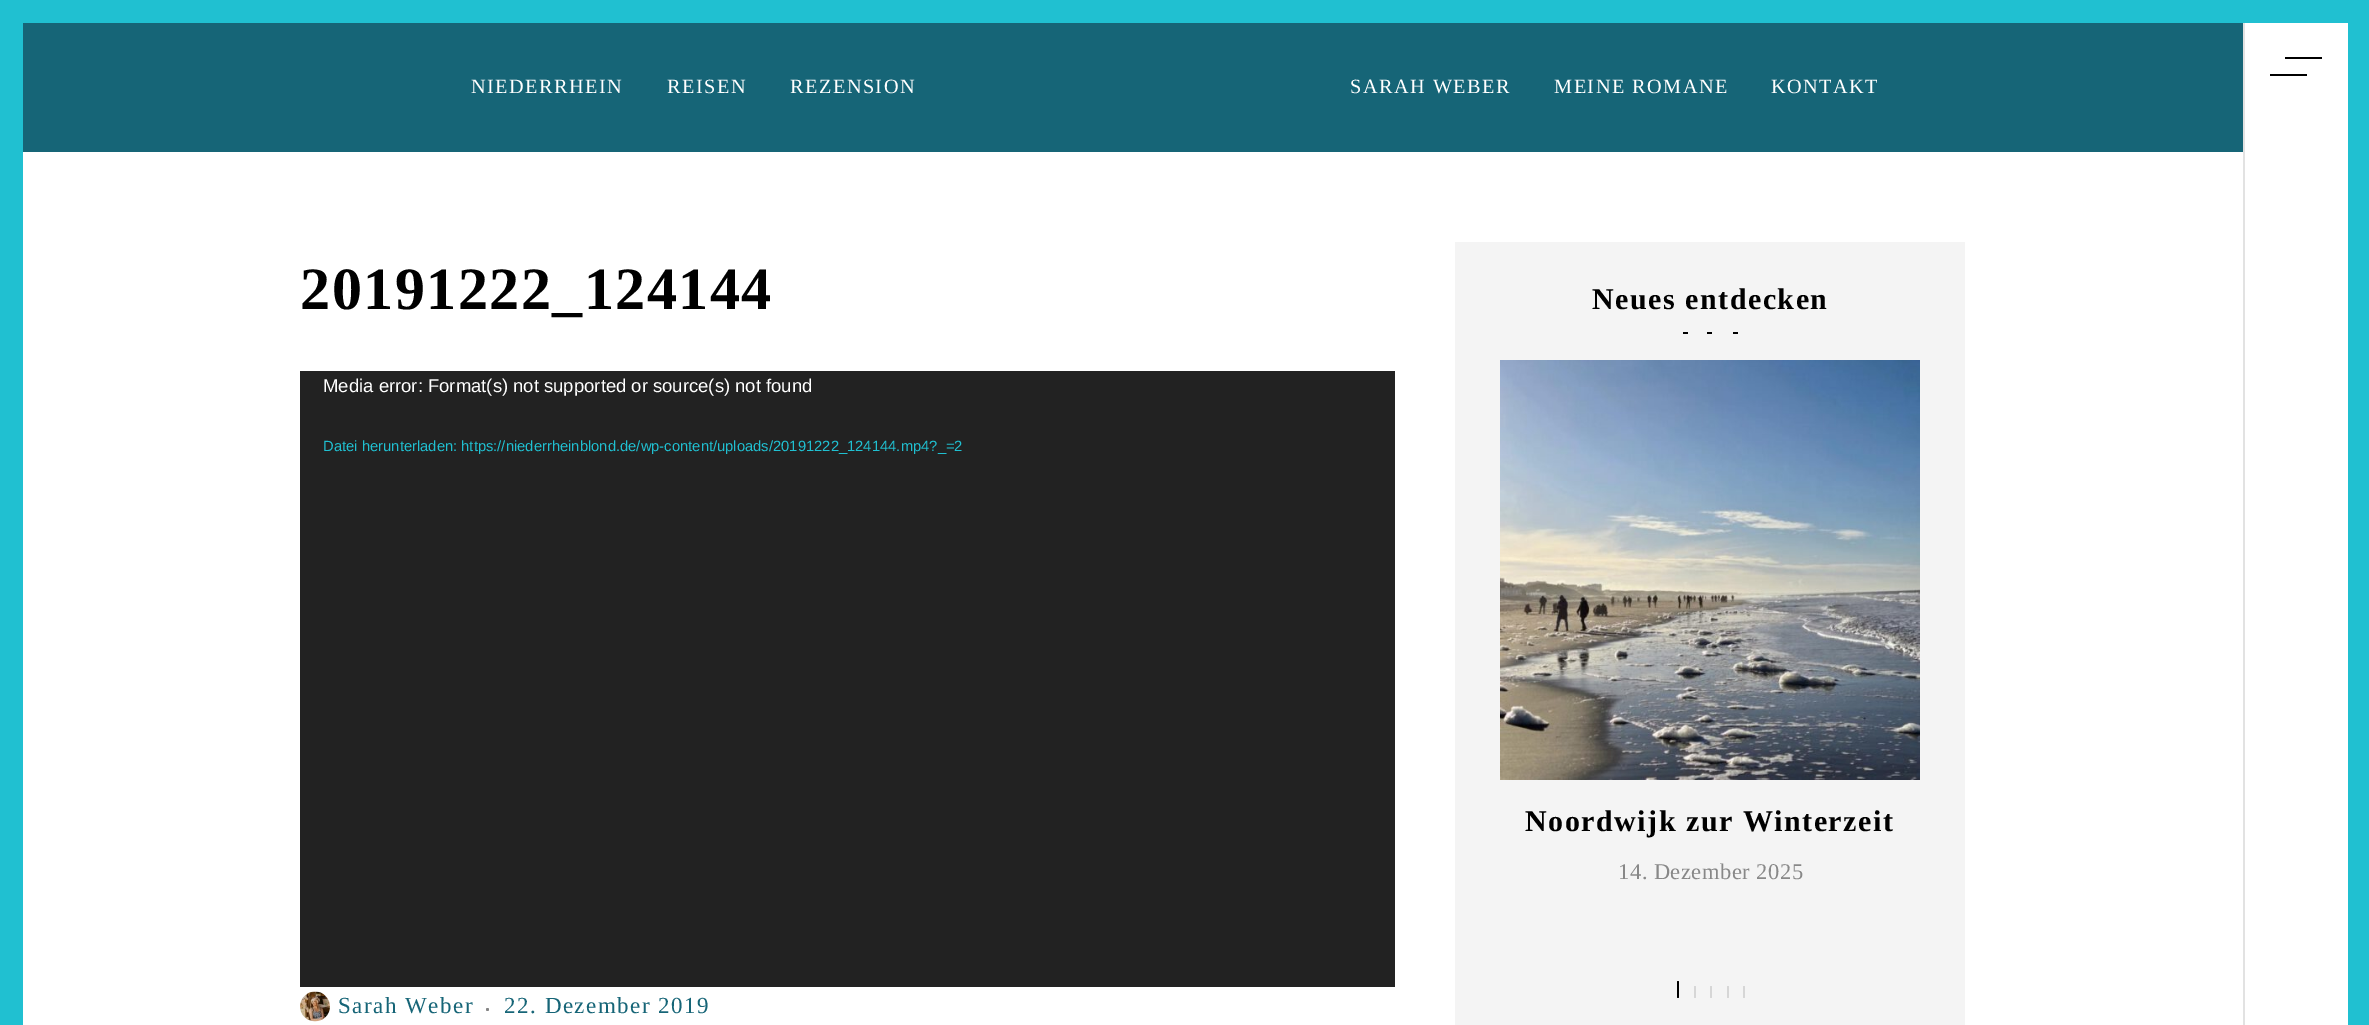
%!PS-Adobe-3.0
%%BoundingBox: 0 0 2369 1025
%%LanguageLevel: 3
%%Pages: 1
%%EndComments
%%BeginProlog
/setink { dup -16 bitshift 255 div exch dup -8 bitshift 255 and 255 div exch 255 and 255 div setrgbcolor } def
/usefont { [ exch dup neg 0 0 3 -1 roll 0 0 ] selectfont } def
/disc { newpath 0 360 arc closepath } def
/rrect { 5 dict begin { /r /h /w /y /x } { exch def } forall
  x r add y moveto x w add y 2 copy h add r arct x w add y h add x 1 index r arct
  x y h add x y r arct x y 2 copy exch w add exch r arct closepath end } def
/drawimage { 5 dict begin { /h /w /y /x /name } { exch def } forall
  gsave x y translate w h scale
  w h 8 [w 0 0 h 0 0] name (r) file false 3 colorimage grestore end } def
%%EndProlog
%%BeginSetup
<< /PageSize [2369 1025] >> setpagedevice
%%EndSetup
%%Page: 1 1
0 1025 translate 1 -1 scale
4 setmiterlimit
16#FFFFFF setink
0 0 2369 1025 rectfill
[
    [23 0 2325 23 16#20C0D1]
    [2348 0 21 1025 16#20C0D1]
    [0 0 23 1025 16#20C0D1]
    [23 23 2220 129 16#166577]
] { aload pop setink rectfill } forall
/LiberationSerif-Regular 20.25 usefont
16#FFFFFF setink
471 93 moveto 1.5 0 (NIEDERRHEIN) ashow
667 93 moveto 1.5 0 (REISEN) ashow
790 93 moveto 1.5 0 (REZENSION) ashow
1350 93 moveto 1.5 0 (SARAH WEBER) ashow
1554 93 moveto 1.5 0 (MEINE ROMANE) ashow
1771 93 moveto 1.5 0 (KONTAKT) ashow
[
    [2243 23 2 1002 16#E2E2E2]
    [2285 57 37 2 16#000000]
    [2270 74 37 2 16#000000]
] { aload pop setink rectfill } forall
/LiberationSerif-Bold 60 usefont
300 309 moveto 1.5 0 (20191222_124144) ashow
16#222222 setink
300 371 1095 616 rectfill
/LiberationSans-Regular 18.5 usefont
16#FFFFFF setink
323 392 moveto (Media error: Format\(s\) not supported or source\(s\) not found) show
/LiberationSans-Regular 14.8 usefont
16#20C0D1 setink
323 451 moveto (Datei herunterladen: https://niederrheinblond.de/wp-content/uploads/20191222_124144.mp4?_=2) show
(img1.raw) 300 991 30 31 drawimage
/LiberationSerif-Regular 23 usefont
16#166577 setink
338 1013 moveto 1.5 0 (Sarah Weber) ashow
16#848484 setink
487.5 1009.5 1.5 disc fill
16#166577 setink
504 1013 moveto 1.5 0 (22. Dezember 2019) ashow
16#F4F4F4 setink
1455 242 510 783 rectfill
/LiberationSerif-Bold 30 usefont
16#000000 setink
1592 309 moveto 1.5 0 (Neues entdecken) ashow
[
    [1683 332 5 2 16#000000]
    [1707 332 5 2 16#000000]
    [1733 332 5 2 16#000000]
] { aload pop setink rectfill } forall
(img2.raw) 1500 360 420 420 drawimage
1525 831 moveto 1.5 0 (Noordwijk zur Winterzeit) ashow
/LiberationSerif-Regular 22.5 usefont
16#888888 setink
1618 879 moveto 0.5 0 (14. Dezember 2025) ashow
16#000000 setink
1677 981 2 17 1 rrect fill
16#D6D6D6 setink
1694 986 2 12 1 rrect fill
1710 986 2 12 1 rrect fill
1727 986 2 12 1 rrect fill
1743 986 2 12 1 rrect fill
showpage
%%EOF
